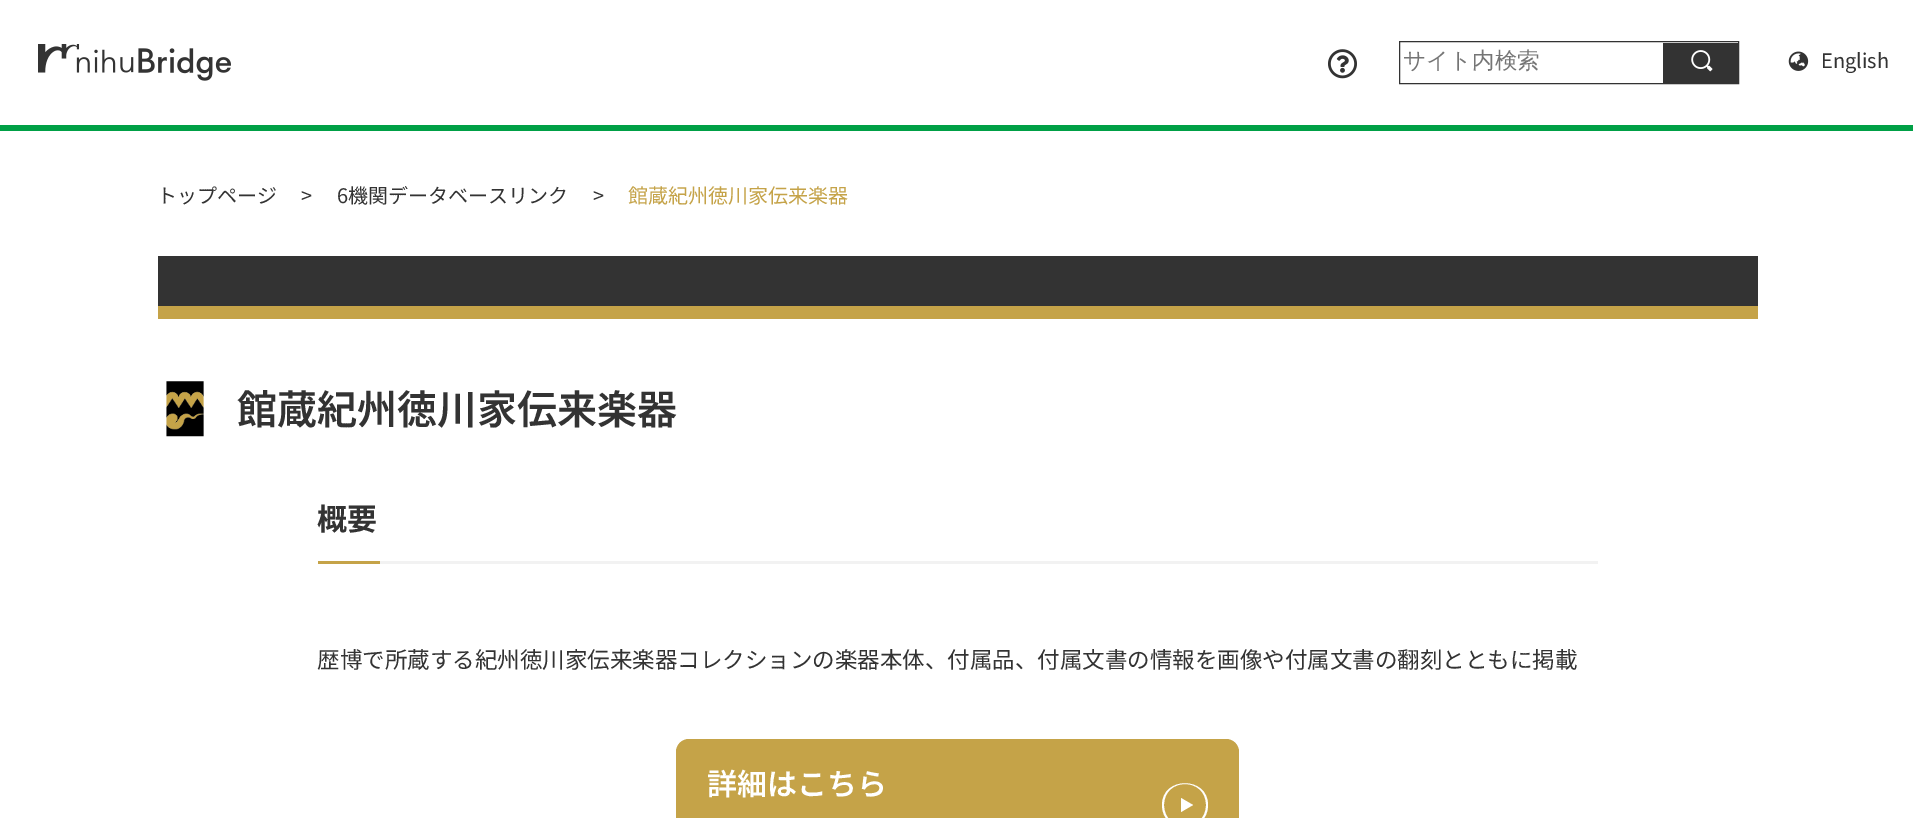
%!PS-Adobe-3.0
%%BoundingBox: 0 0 1913 818
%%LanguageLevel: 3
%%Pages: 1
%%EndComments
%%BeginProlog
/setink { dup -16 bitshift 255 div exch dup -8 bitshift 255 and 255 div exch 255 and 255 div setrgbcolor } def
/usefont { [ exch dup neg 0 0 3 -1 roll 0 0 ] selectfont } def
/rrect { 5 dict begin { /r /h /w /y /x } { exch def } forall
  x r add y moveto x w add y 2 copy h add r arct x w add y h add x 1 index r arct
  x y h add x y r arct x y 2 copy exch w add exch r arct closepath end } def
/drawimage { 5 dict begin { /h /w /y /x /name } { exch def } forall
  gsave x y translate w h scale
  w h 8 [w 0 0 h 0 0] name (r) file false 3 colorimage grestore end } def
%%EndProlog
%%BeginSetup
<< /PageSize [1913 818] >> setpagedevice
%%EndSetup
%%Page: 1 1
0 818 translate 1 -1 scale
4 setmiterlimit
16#FFFFFF setink
0 0 1913 818 rectfill
16#00A046 setink
0 125 1913 6 rectfill
(img1.raw) 38 44 193 37 drawimage
(img2.raw) 1328 49 29 30 drawimage
16#333333 setink
1399.5 41.5 339 42 rectstroke
/WenQuanYiZenHei-Medium 22.5 usefont
16#757575 setink
1403 68 moveto (サイト内検索) show
16#333333 setink
1663 43 75 40 rectfill
(img3.raw) 1691 50 22 22 drawimage
(img4.raw) 1788 51 21 20 drawimage
/NotoSansJP-Regular 20 usefont
[
    [(English) 1821 68]
    [(トップページ) 157 203]
    [(>) 301 203]
    [(6機関データベースリンク) 337 203]
    [(>) 593 203]
] { aload pop moveto show } forall
16#C5A348 setink
628 203 moveto (館蔵紀州徳川家伝来楽器) show
16#333333 setink
158 256 1600 50 rectfill
16#C5A348 setink
158 306 1600 13 rectfill
(img5.raw) 166 381 38 56 drawimage
/NotoSansJP-SemiBold 40 usefont
16#333333 setink
237 424 moveto (館蔵紀州徳川家伝来楽器) show
16#F2F2F2 setink
380 561 1218 3 rectfill
/NotoSansJP-Bold 30 usefont
16#333333 setink
317 530 moveto (概要) show
16#C5A348 setink
318 561 62 3 rectfill
/NotoSansJP-Regular 22.5 usefont
16#333333 setink
317 668 moveto (歴博で所蔵する紀州徳川家伝来楽器コレクションの楽器本体、付属品、付属文書の情報を画像や付属文書の翻刻とともに掲載) show
16#C5A348 setink
676 739 563 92 13 rrect fill
/NotoSansJP-SemiBold 30 usefont
16#FFFFFF setink
707 795 moveto (詳細はこちら) show
1181 812 moveto 1181 798 lineto 1193 805 lineto closepath 1208 805 moveto 1208 776 1162 776 1162 805 curveto 1162 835 1208 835 1208 805 curveto closepath 1206 805 moveto 1206 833 1164 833 1164 805 curveto 1164 777 1206 777 1206 805 curveto closepath fill
showpage
%%EOF
